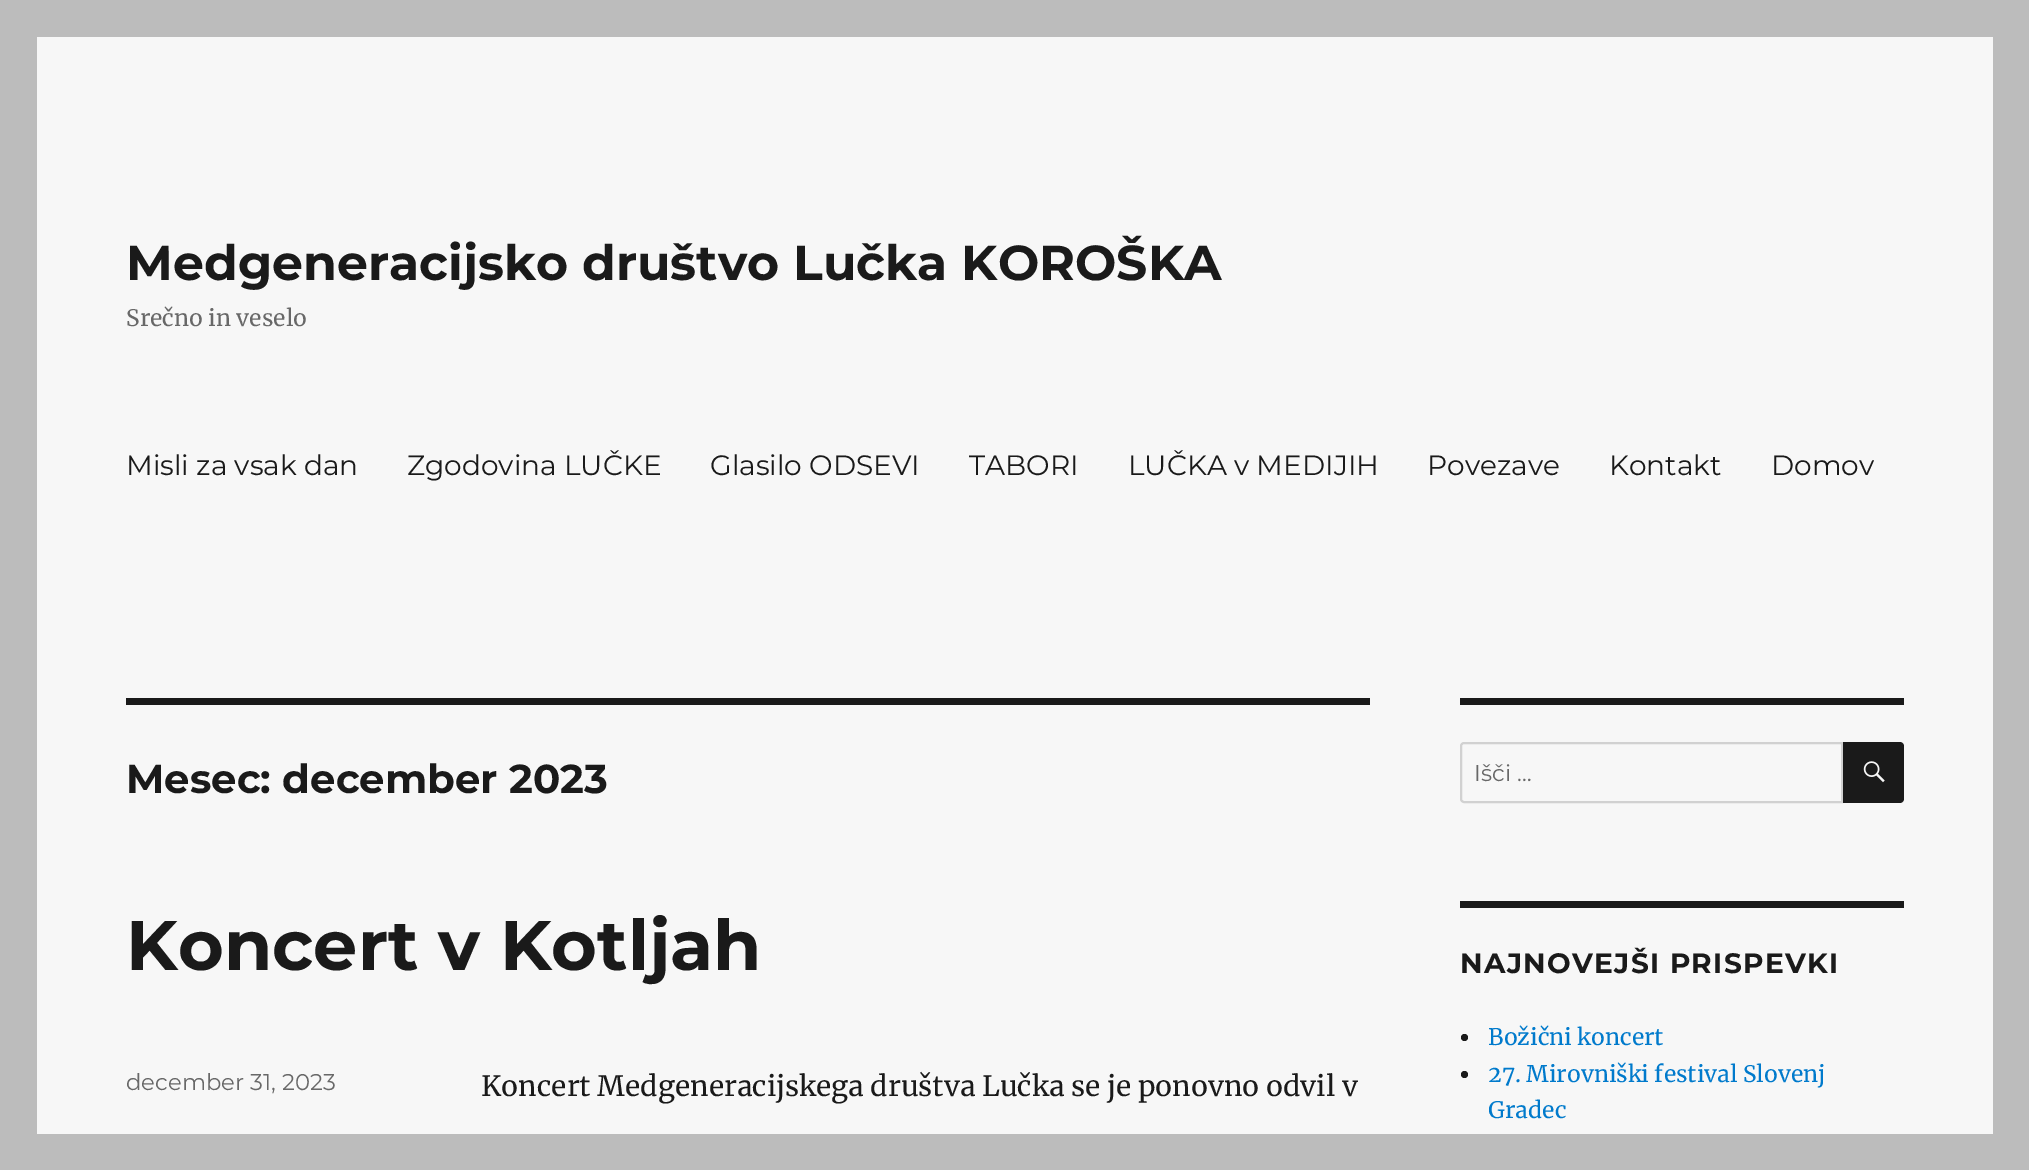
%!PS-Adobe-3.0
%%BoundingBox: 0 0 2029 1170
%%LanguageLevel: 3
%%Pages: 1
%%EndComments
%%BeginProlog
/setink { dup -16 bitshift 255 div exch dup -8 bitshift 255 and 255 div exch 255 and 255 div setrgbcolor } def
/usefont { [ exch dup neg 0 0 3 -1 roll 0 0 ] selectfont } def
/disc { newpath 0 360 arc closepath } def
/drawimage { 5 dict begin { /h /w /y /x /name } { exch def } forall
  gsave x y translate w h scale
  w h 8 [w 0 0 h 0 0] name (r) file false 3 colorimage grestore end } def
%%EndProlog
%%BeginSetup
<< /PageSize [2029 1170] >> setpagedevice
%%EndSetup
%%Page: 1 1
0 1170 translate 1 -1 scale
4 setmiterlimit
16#BCBCBC setink
0 0 2029 1170 rectfill
16#F7F7F7 setink
37 37 1956 1097 rectfill
/Montserrat-Bold 49 usefont
16#1A1A1A setink
126 280 moveto (Medgeneracijsko društvo Lučka KOROŠKA) show
/Merriweather-Regular 22.75 usefont
16#686868 setink
126 326 moveto (Srečno in veselo) show
/Montserrat-Regular 28 usefont
16#1A1A1A setink
[
    [(Misli za vsak dan) 126 475]
    [(Zgodovina LUČKE) 407 475]
    [(Glasilo ODSEVI) 710 475]
    [(TABORI) 969 475]
    [(LUČKA v MEDIJIH) 1128 475]
    [(Povezave) 1427 475]
    [(Kontakt) 1609 475]
    [(Domov) 1771 475]
] { aload pop moveto show } forall
126 698 1244 7 rectfill
/Montserrat-Bold 40.25 usefont
126 793 moveto (Mesec: december 2023) show
/Montserrat-Bold 70 usefont
126 970 moveto (Koncert v Kotljah) show
/Montserrat-Regular 22.75 usefont
16#686868 setink
126 1090 moveto (december 31, 2023) show
/Merriweather-Regular 28 usefont
16#1A1A1A setink
481 1096 moveto (Koncert Medgeneracijskega društva Lučka se je ponovno odvil v) show
1460 698 444 7 rectfill
16#D1D1D1 setink
2 setlinewidth
1464 743 moveto 1842 743 lineto 1842 802 lineto 1464 802 lineto 1462.5 802 1461 800.5 1461 799 curveto 1461 746 lineto 1461 744.5 1462.5 743 1464 743 curveto closepath stroke
/Montserrat-Regular 22.75 usefont
16#686868 setink
1474 781 moveto (Išči …) show
16#1A1A1A setink
1843 742 moveto 1900 742 lineto 1902 742 1904 744 1904 746 curveto 1904 799 lineto 1904 801 1902 803 1900 803 curveto 1843 803 lineto closepath fill
(img1.raw) 1863 761 22 22 drawimage
1460 901 444 7 rectfill
/Montserrat-Bold 28 usefont
1460 973 moveto 1.3 0 (NAJNOVEJŠI PRISPEVKI) ashow
1464.5 1037.5 3.5 disc fill
/Merriweather-Regular 22.75 usefont
16#007ACC setink
1488 1045 moveto (Božični koncert) show
16#1A1A1A setink
1464.5 1074.5 3.5 disc fill
16#007ACC setink
1488 1082 moveto (27. Mirovniški festival Slovenj) show
1488 1118 moveto (Gradec) show
showpage
%%EOF
